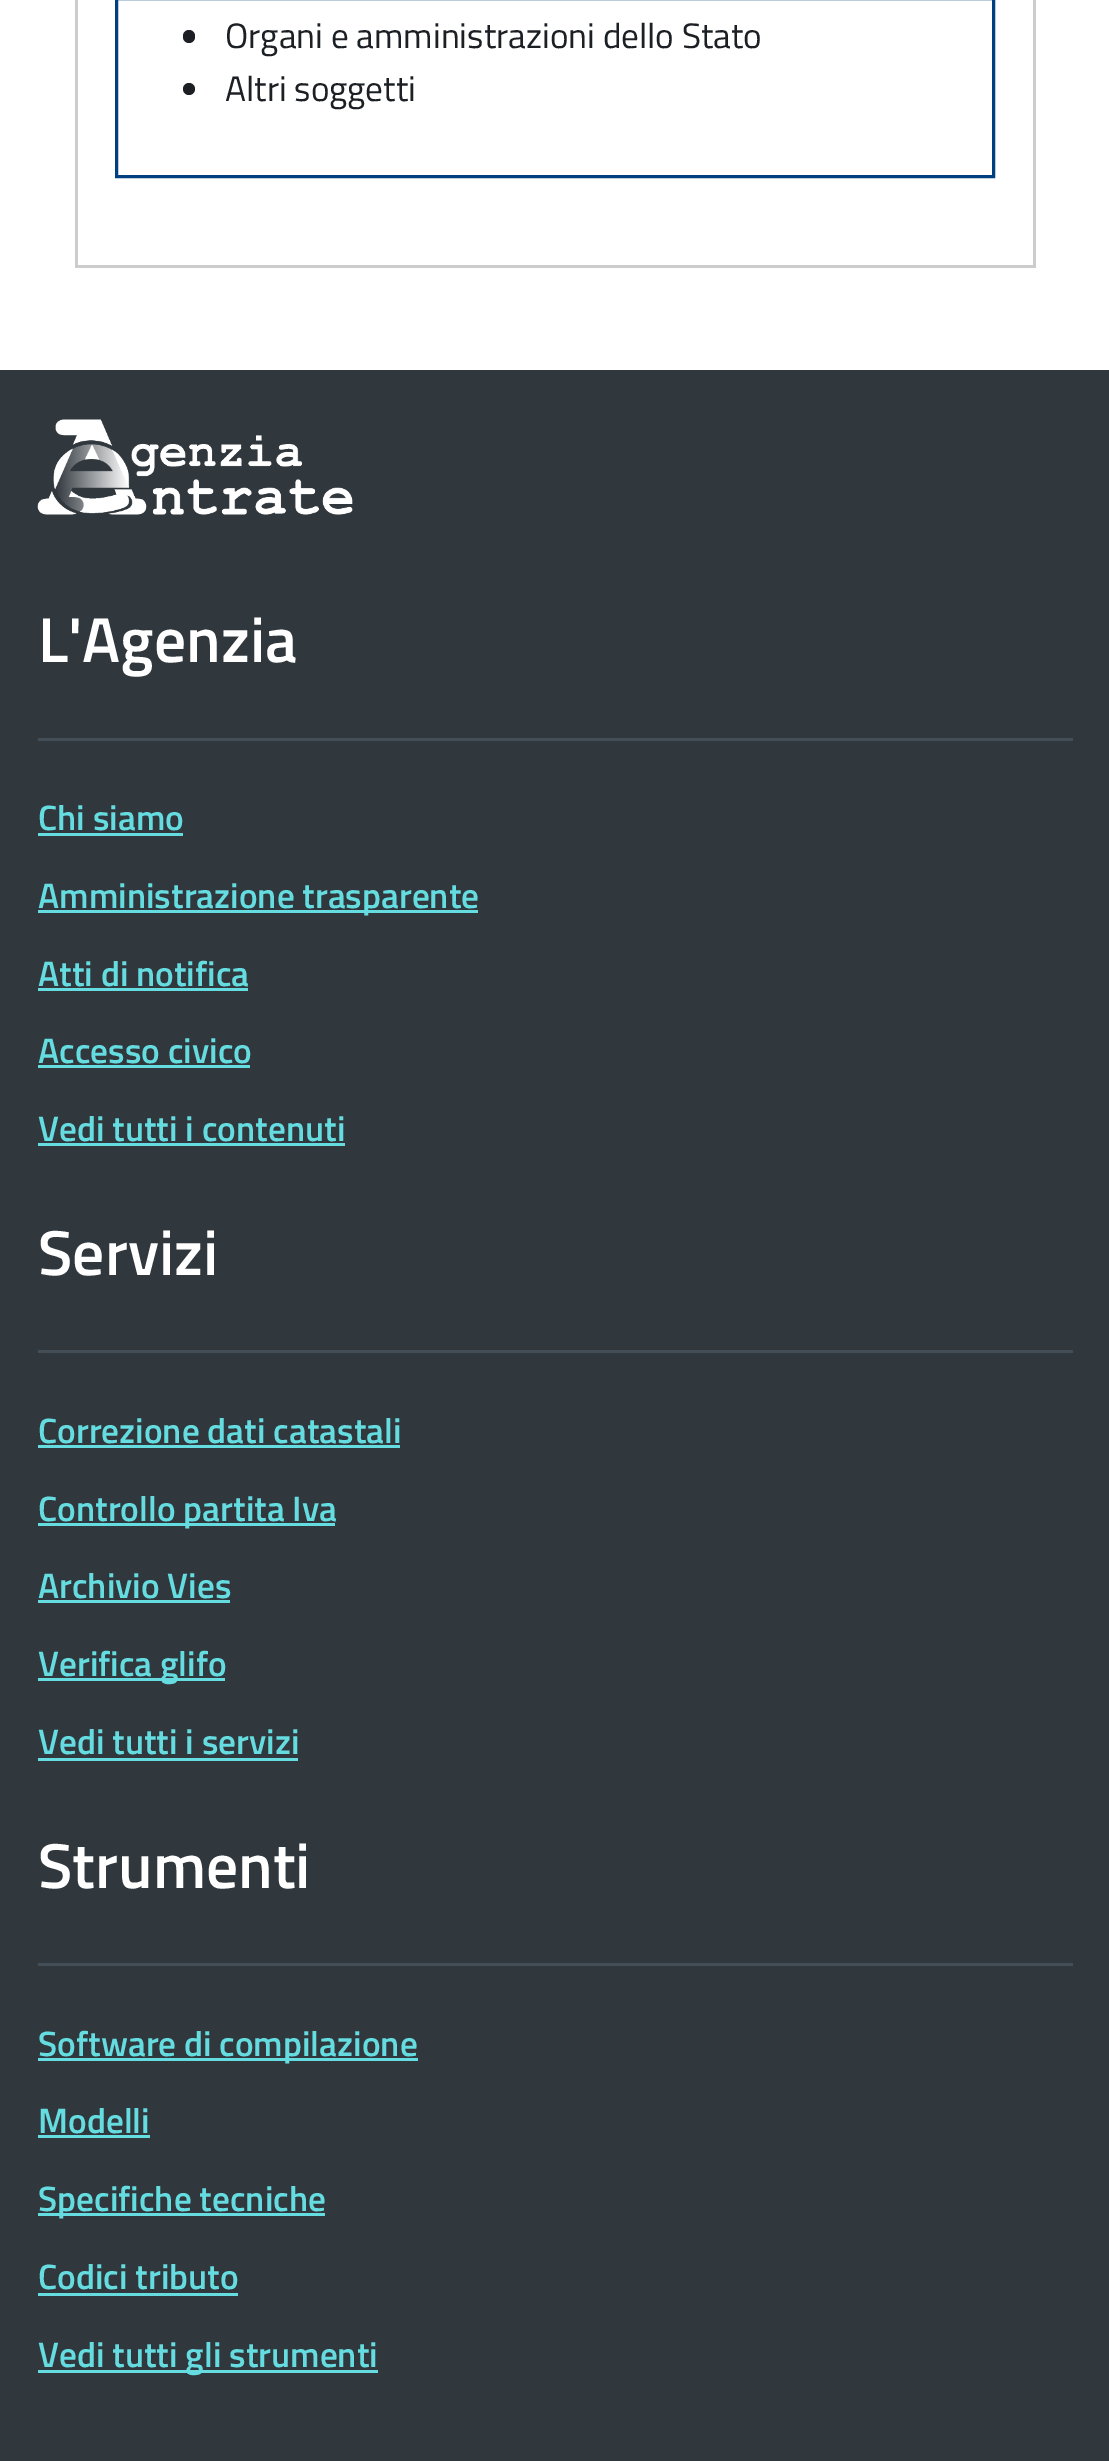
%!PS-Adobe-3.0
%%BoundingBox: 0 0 1109 2461
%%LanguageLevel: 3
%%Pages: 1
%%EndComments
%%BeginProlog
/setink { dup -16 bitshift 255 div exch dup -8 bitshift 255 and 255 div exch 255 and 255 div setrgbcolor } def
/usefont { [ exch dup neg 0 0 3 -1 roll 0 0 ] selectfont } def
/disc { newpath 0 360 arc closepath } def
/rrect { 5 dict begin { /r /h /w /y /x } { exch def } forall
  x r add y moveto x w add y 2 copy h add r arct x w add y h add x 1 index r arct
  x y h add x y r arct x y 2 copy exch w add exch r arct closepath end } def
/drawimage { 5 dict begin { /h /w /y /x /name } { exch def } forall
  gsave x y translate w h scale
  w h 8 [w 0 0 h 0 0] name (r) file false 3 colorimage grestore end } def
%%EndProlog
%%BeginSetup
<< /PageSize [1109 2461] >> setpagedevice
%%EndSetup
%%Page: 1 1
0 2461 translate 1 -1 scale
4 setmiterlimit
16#FFFFFF setink
0 0 1109 2461 rectfill
[
    [1033 0 3 268 16#CCCCCC]
    [75 265 960 3 16#CCCCCC]
    [75 0 3 268 16#CCCCCC]
] { aload pop setink rectfill } forall
16#004080 setink
3 setlinewidth
116.5 -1.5 877 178 rectstroke
16#1C2024 setink
183 30 12 13 6 rrect fill
/TitilliumWeb-Regular 35.25 usefont
225 48 moveto (Organi e amministrazioni dello Stato) show
189 89 6 disc fill
225 101 moveto (Altri soggetti) show
16#30373D setink
0 370 1109 2091 rectfill
(img1.raw) 37 419 316 96 drawimage
/TitilliumWeb-SemiBold 63.5 usefont
16#FFFFFF setink
38 662 moveto (L'Agenzia) show
16#444E57 setink
38 738 1035 3 rectfill
/TitilliumWeb-SemiBold 35.25 usefont
16#65DDE0 setink
38 830 moveto (Chi siamo) show
38 833 145 3 rectfill
38 910 440 3 rectfill
38 908 moveto (Amministrazione trasparente) show
38 986 moveto (Atti di notifica) show
38 988 210 3 rectfill
38 1063 moveto (Accesso civico) show
38 1065 212 3 rectfill
38 1141 moveto (Vedi tutti i contenuti) show
38 1143 307 3 rectfill
/TitilliumWeb-SemiBold 63.5 usefont
16#FFFFFF setink
38 1275 moveto (Servizi) show
16#444E57 setink
38 1350 1035 3 rectfill
/TitilliumWeb-SemiBold 35.25 usefont
16#65DDE0 setink
38 1443 moveto (Correzione dati catastali) show
38 1445 362 3 rectfill
38 1523 297 3 rectfill
38 1521 moveto (Controllo partita Iva) show
38 1598 moveto (Archivio Vies) show
38 1600 192 3 rectfill
38 1678 187 3 rectfill
38 1676 moveto (Verifica glifo) show
38 1754 moveto (Vedi tutti i servizi) show
38 1758 260 3 rectfill
/TitilliumWeb-SemiBold 63.5 usefont
16#FFFFFF setink
38 1888 moveto (Strumenti) show
16#444E57 setink
38 1963 1035 3 rectfill
16#65DDE0 setink
38 2058 380 3 rectfill
/TitilliumWeb-SemiBold 35.25 usefont
38 2056 moveto (Software di compilazione) show
38 2133 moveto (Modelli) show
38 2135 112 3 rectfill
38 2213 287 3 rectfill
38 2211 moveto (Specifiche tecniche) show
38 2289 moveto (Codici tributo) show
38 2293 200 3 rectfill
38 2370 340 3 rectfill
38 2367 moveto (Vedi tutti gli strumenti) show
showpage
%%EOF
